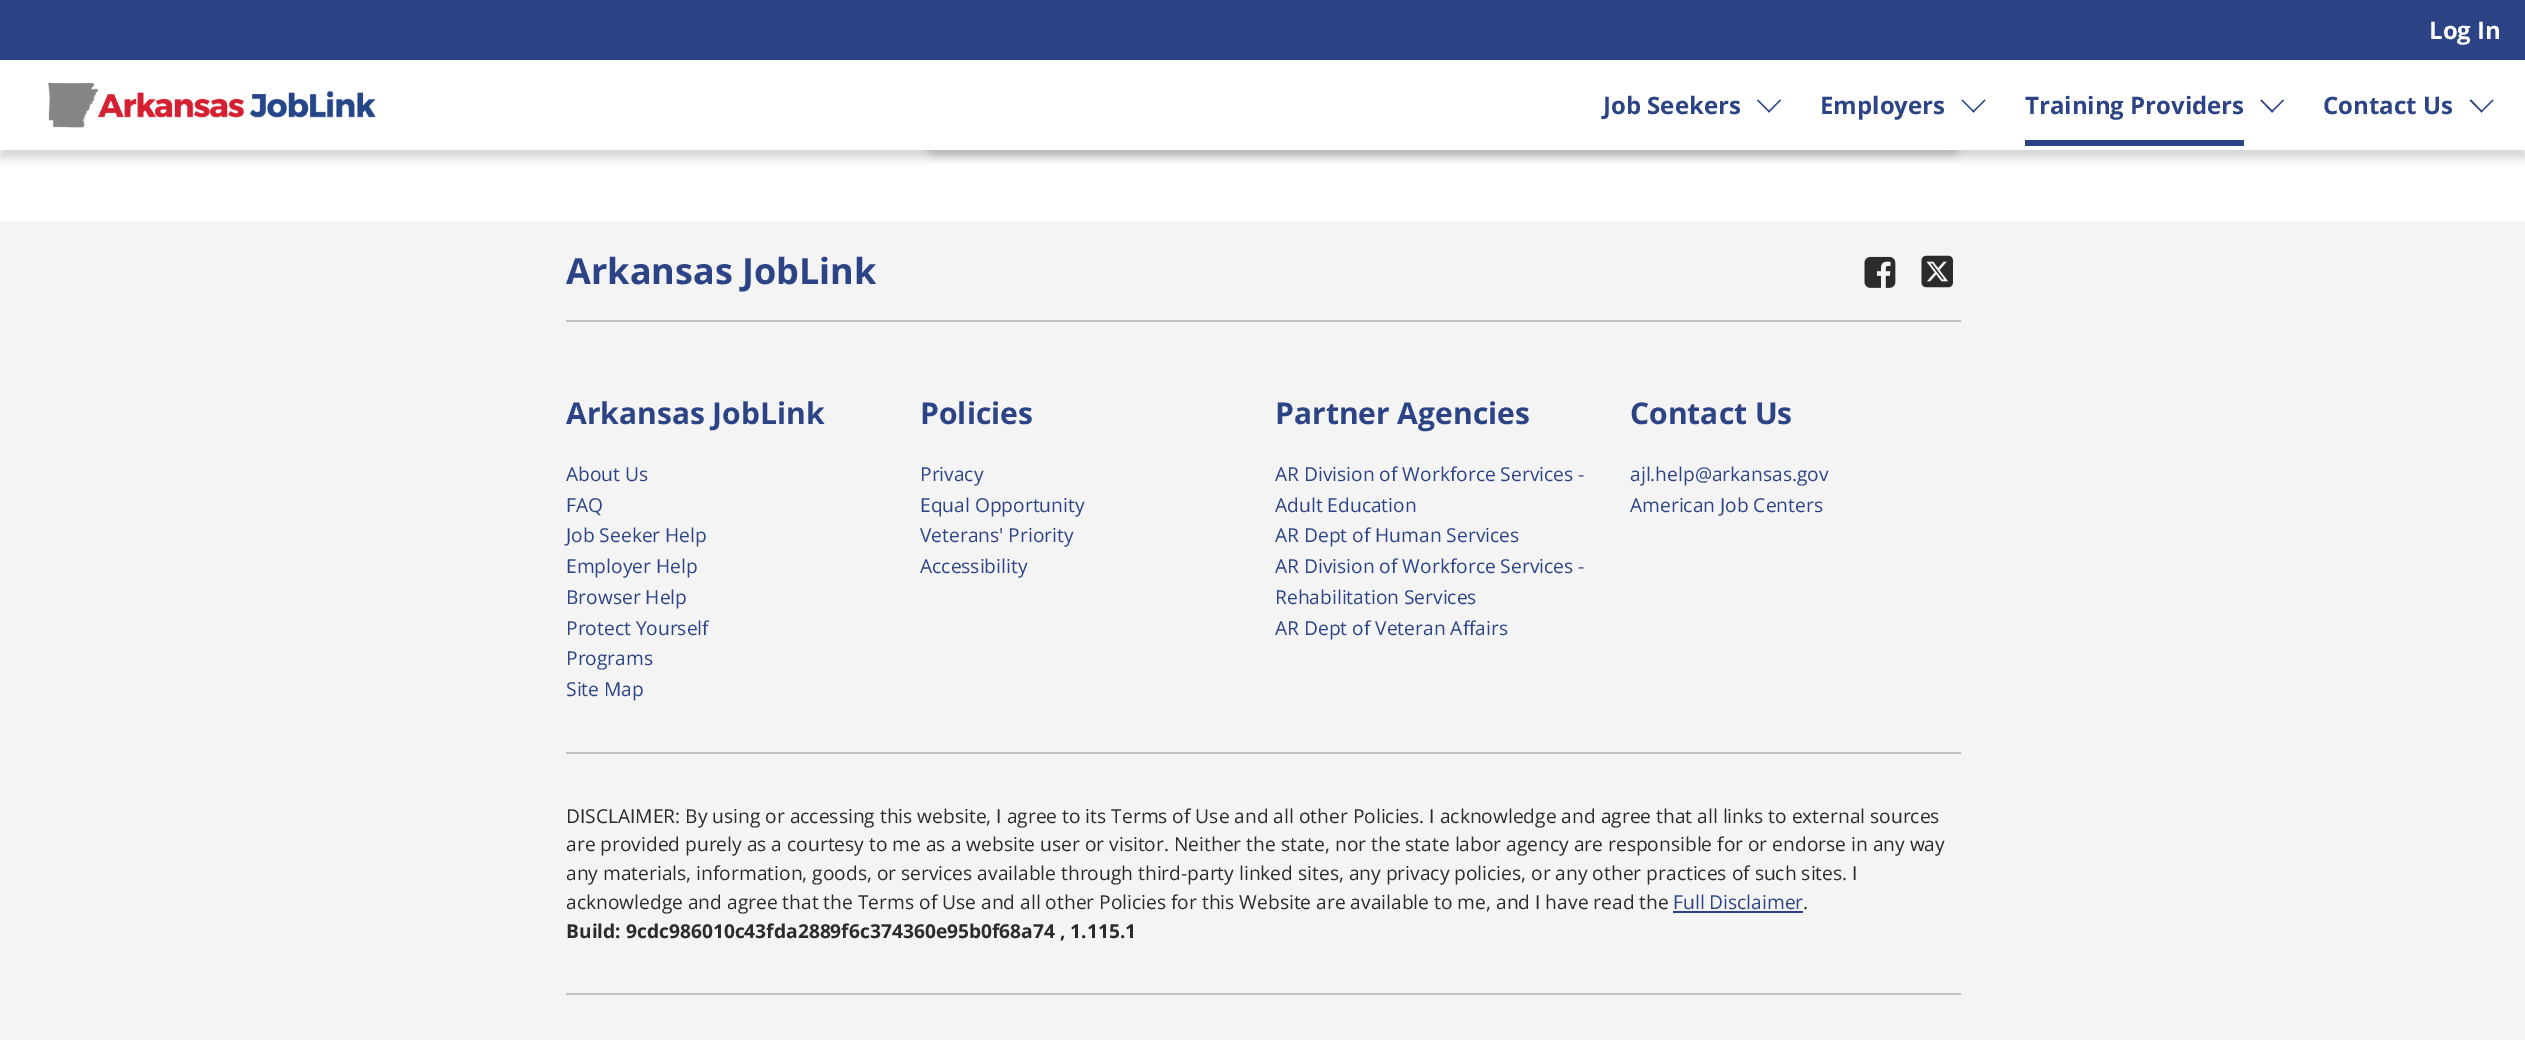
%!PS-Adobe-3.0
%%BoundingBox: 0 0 2525 1040
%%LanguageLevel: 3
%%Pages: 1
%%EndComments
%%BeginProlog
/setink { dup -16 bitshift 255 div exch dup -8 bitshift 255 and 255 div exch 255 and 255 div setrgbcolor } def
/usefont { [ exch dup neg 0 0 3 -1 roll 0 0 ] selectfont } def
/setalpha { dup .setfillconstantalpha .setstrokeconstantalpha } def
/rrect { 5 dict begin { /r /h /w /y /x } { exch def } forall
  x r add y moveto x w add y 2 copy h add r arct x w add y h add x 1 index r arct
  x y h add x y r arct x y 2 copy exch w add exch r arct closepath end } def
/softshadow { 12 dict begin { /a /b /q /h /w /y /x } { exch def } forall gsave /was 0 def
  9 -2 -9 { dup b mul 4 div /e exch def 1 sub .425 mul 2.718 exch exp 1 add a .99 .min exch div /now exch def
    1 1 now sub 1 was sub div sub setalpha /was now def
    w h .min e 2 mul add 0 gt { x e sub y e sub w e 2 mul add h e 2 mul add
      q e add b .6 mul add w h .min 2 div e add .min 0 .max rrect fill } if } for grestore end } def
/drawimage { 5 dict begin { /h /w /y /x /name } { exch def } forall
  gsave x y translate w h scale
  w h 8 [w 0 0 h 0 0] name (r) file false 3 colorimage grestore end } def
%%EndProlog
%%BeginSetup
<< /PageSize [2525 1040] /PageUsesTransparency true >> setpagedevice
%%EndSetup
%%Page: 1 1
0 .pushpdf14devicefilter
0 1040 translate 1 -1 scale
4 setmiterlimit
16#FFFFFF setink
0 0 2525 1040 rectfill
16#000000 setink
927 -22 1032 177 8 4.5 0.16 softshadow
0 68 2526 90 0 4.5 0.16 softshadow
16#FFFFFF setink
0 60 2525 90 rectfill
(img1.raw) 48 82 328 46 drawimage
16#2C4486 setink
0 0 2525 60 rectfill
/OpenSans-Bold 24 usefont
16#FFFFFF setink
2429 39 moveto (Log In) show
16#2C4486 setink
1603 114 moveto (Job Seekers) show
1780 99.5 moveto 1781 100.5 lineto 1769 112.5 lineto 1768 111.5 lineto closepath fill
1758 99.5 moveto 1770 111.5 lineto 1769 112.5 lineto 1757 100.5 lineto closepath fill
1820 114 moveto (Employers) show
1984.5 99.5 moveto 1985.5 100.5 lineto 1973.5 112.5 lineto 1972.5 111.5 lineto closepath fill
1962.5 99.5 moveto 1974.5 111.5 lineto 1973.5 112.5 lineto 1961.5 100.5 lineto closepath fill
2025 114 moveto (Training Providers) show
2025 140 219 6 rectfill
2283 99.5 moveto 2284 100.5 lineto 2272 112.5 lineto 2271 111.5 lineto closepath fill
2261.5 99.5 moveto 2273.5 111.5 lineto 2272 112.5 lineto 2260.5 100.5 lineto closepath fill
2323 114 moveto (Contact Us) show
2492.5 99.5 moveto 2493.5 100.5 lineto 2481.5 112.5 lineto 2480.5 111.5 lineto closepath fill
2471 99.5 moveto 2482.5 111.5 lineto 2481.5 112.5 lineto 2469.5 100.5 lineto closepath fill
16#F4F4F4 setink
0 221 2525 819 rectfill
/OpenSans-Bold 36 usefont
16#2C4486 setink
566 284 moveto (Arkansas JobLink) show
(img2.raw) 1864 256 32 32 drawimage
(img3.raw) 1921 255 32 33 drawimage
16#C1C1C1 setink
566 320 1395 2 rectfill
/OpenSans-Bold 30 usefont
16#2C4486 setink
566 424 moveto (Arkansas JobLink) show
/OpenSans-Regular 19.2 usefont
[
    [(About Us) 566 481]
    [(FAQ) 566 512]
    [(Job Seeker Help) 566 542]
    [(Employer Help) 566 573]
    [(Browser Help) 566 604]
    [(Protect Yourself) 566 635]
    [(Programs) 566 665]
    [(Site Map) 566 696]
] { aload pop moveto show } forall
/OpenSans-Bold 30 usefont
920 424 moveto (Policies) show
/OpenSans-Regular 19.2 usefont
[
    [(Privacy) 920 481]
    [(Equal Opportunity) 920 512]
    [(Veterans' Priority) 920 542]
    [(Accessibility) 920 573]
] { aload pop moveto show } forall
/OpenSans-Bold 30 usefont
1275 424 moveto (Partner Agencies) show
/OpenSans-Regular 19.2 usefont
[
    [(AR Division of Workforce Services -) 1275 481]
    [(Adult Education) 1275 512]
    [(AR Dept of Human Services) 1275 542]
    [(AR Division of Workforce Services -) 1275 573]
    [(Rehabilitation Services) 1275 604]
    [(AR Dept of Veteran Affairs) 1275 635]
] { aload pop moveto show } forall
/OpenSans-Bold 30 usefont
1630 424 moveto (Contact Us) show
/OpenSans-Regular 19.2 usefont
1630 481 moveto (ajl.help@arkansas.gov) show
1630 512 moveto (American Job Centers) show
16#C1C1C1 setink
566 752 1395 2 rectfill
16#2B2B2B setink
[
    [(DISCLAIMER: By using or accessing this website, I agree to its Terms of Use and all other Policies. I acknowledge and agree that all links to external sources) 566 823]
    [(are provided purely as a courtesy to me as a website user or visitor. Neither the state, nor the state labor agency are responsible for or endorse in any way) 566 851]
    [(any materials, information, goods, or services available through third-party linked sites, any privacy policies, or any other practices of such sites. I) 566 880]
    [(acknowledge and agree that the Terms of Use and all other Policies for this Website are available to me, and I have read the) 566 909]
] { aload pop moveto show } forall
16#2C4486 setink
1673 909 moveto (Full Disclaimer) show
1673 911 130 2 rectfill
16#2B2B2B setink
1803 909 moveto (.) show
/OpenSans-Bold 19.2 usefont
566 938 moveto (Build: 9cdc986010c43fda2889f6c374360e95b0f68a74 , 1.115.1) show
16#C1C1C1 setink
566 993 1395 2 rectfill
.poppdf14devicefilter showpage
%%EOF
